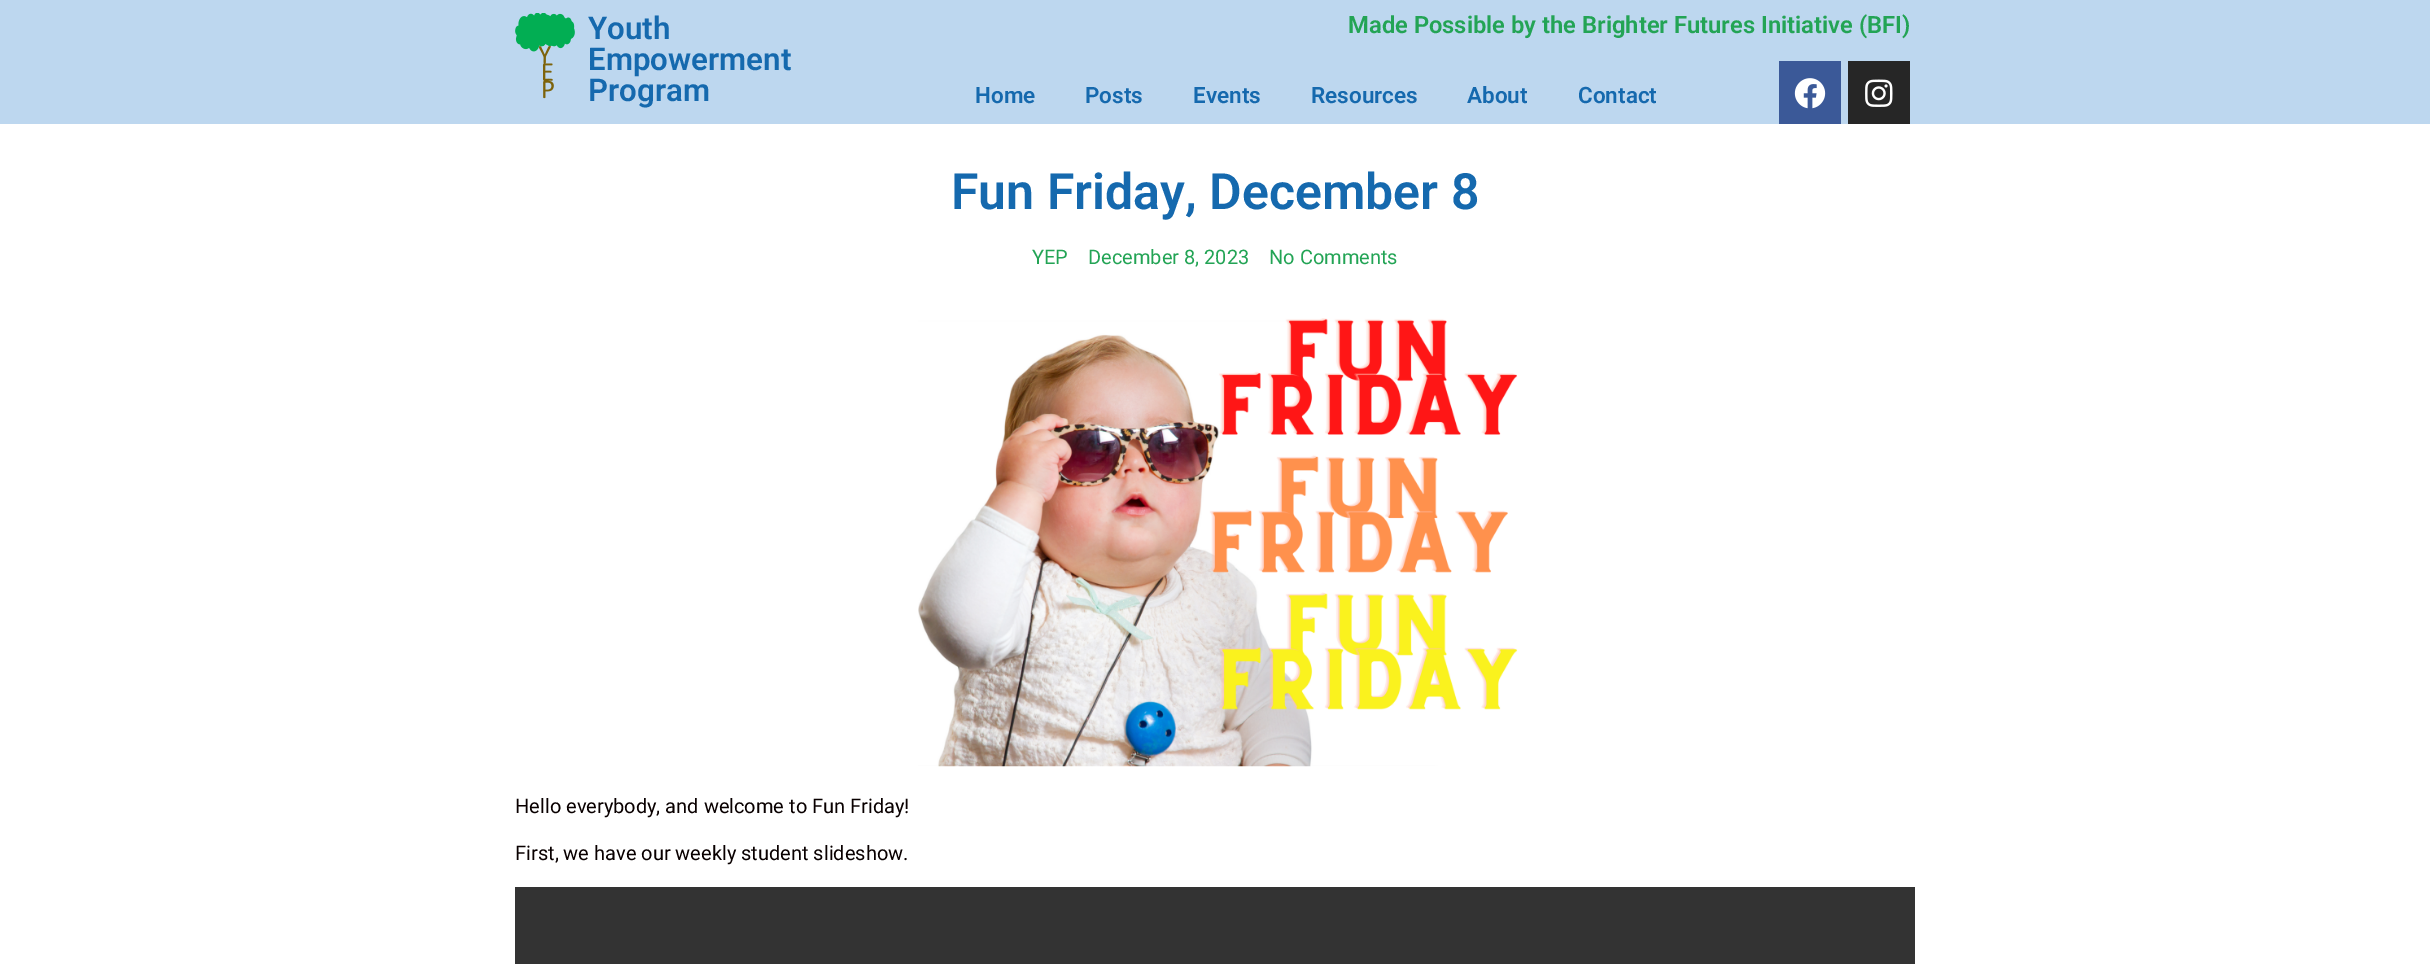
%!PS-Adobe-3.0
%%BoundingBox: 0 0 2430 964
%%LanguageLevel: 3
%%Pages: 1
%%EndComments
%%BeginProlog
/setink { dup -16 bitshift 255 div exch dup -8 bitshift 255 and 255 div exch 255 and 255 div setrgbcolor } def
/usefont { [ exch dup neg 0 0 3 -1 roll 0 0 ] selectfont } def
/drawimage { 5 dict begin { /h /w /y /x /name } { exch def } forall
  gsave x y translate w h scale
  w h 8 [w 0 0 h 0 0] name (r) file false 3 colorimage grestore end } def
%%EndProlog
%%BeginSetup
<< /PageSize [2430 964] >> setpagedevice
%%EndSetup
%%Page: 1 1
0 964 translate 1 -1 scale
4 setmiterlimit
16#FFFFFF setink
0 0 2430 964 rectfill
16#BDD7EF setink
0 0 2430 124 rectfill
(img1.raw) 515 13 60 86 drawimage
/Roboto-SemiBold 31.25 usefont
16#1569AE setink
[
    [(Youth) 588 39]
    [(Empowerment) 588 70]
    [(Program) 588 101]
] { aload pop moveto show } forall
/Roboto-SemiBold 23.75 usefont
16#23A455 setink
1348 33 moveto (Made Possible by the Brighter Futures Initiative \(BFI\)) show
/Roboto-SemiBold 22.5 usefont
16#1569AE setink
[
    [(Home) 975 103]
    [(Posts) 1085 103]
    [(Events) 1193 103]
    [(Resources) 1311 103]
    [(About) 1467 103]
    [(Contact) 1578 103]
] { aload pop moveto show } forall
16#3B5998 setink
1779 61 62 63 rectfill
(img2.raw) 1794 78 32 31 drawimage
16#262626 setink
1848 61 62 63 rectfill
(img3.raw) 1865 79 28 28 drawimage
/Roboto-SemiBold 50 usefont
16#1569AE setink
951 209 moveto (Fun Friday, December 8) show
/Roboto-Regular 20 usefont
16#23A455 setink
[
    [(YEP) 1032 264]
    [(December 8, 2023) 1088 264]
    [(No Comments) 1269 264]
] { aload pop moveto show } forall
(img4.raw) 918 318 600 449 drawimage
16#090000 setink
515 813 moveto (Hello everybody, and welcome to Fun Friday!) show
515 860 moveto (First, we have our weekly student slideshow.) show
16#333333 setink
515 887 1400 77 rectfill
showpage
%%EOF
